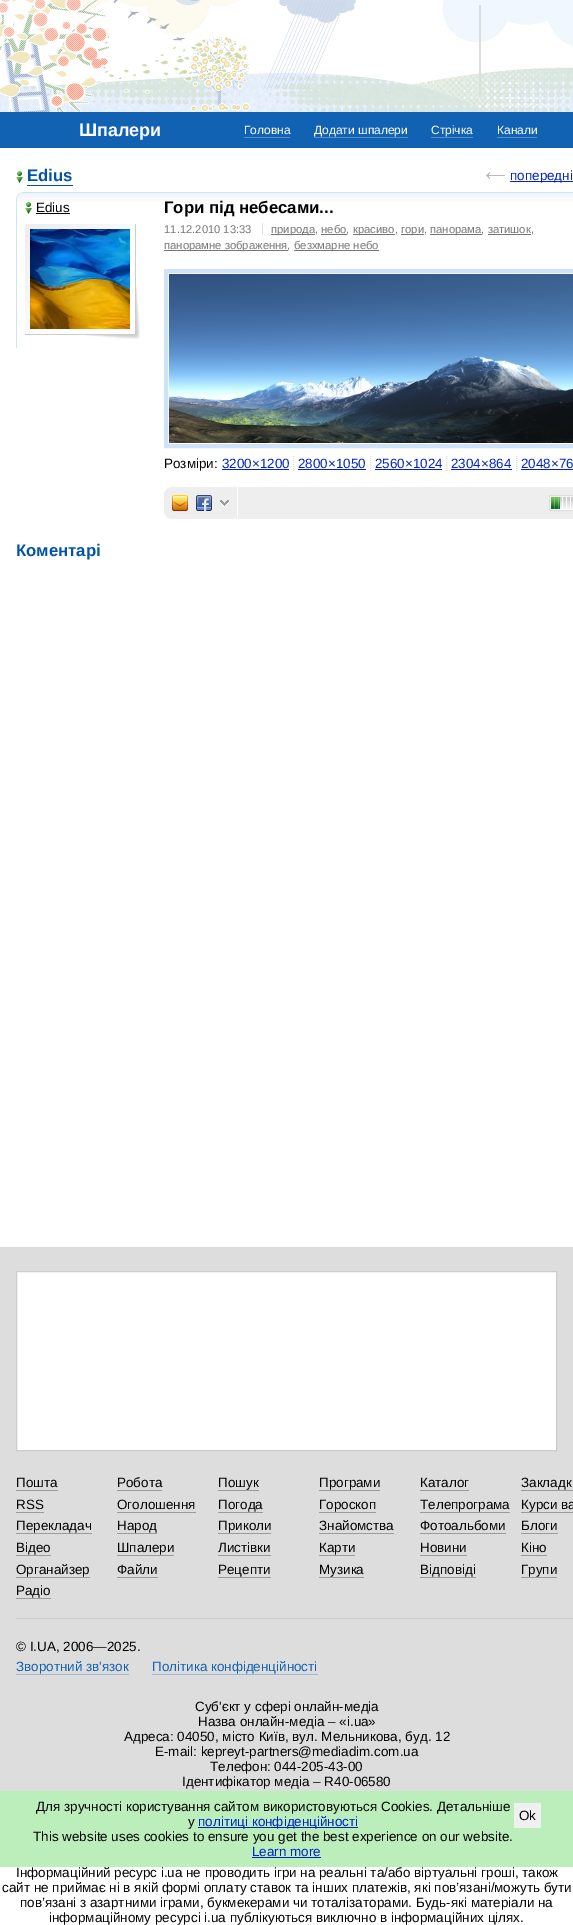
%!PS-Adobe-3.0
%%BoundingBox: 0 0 573 1925
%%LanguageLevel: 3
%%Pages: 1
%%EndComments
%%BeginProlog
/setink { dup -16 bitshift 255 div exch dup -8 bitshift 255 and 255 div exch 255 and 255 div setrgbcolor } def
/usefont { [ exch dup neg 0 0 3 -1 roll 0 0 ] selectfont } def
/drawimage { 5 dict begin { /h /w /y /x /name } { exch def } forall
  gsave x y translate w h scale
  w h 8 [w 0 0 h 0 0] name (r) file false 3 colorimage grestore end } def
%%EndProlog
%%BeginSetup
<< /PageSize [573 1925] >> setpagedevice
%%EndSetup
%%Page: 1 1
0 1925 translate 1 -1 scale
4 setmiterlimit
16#FFFFFF setink
0 0 573 1925 rectfill
(img1.raw) 0 0 573 112 drawimage
16#DDDDDD setink
479 5 2 92 rectfill
16#1162B3 setink
0 112 573 36 rectfill
/LiberationSans-Bold 18 usefont
16#FFFFFF setink
79 136 moveto (Шпалери) show
/LiberationSans-Regular 12 usefont
244 134 moveto (Головна) show
16#5891CA setink
244 137 46 1 rectfill
16#FFFFFF setink
314 134 moveto (Додати шпалери) show
16#5891CA setink
314 137 94 1 rectfill
16#FFFFFF setink
431 134 moveto (Стрічка) show
16#5891CA setink
431 137 42 1 rectfill
16#FFFFFF setink
497 134 moveto (Канали) show
16#5891CA setink
497 137 40 1 rectfill
(img2.raw) 16 171 7 12 drawimage
/LiberationSans-Bold 16.75 usefont
16#0053A5 setink
27 181 moveto (Edius) show
27 185 46 1 rectfill
(img3.raw) 486 172 19 7 drawimage
16#0022CC setink
510 181 63 1 rectfill
/LiberationSans-Regular 13.45 usefont
510 180 moveto (попередні) show
(img4.raw) 17 193 556 9 drawimage
16#CEE3F7 setink
16 192 557 1 rectfill
(img5.raw) 16 192 7 8 drawimage
16 200 1 148 rectfill
(img2.raw) 25 202 7 12 drawimage
16#000000 setink
36 212 moveto (Edius) show
36 213 34 1 rectfill
(img6.raw) 25 224 115 115 drawimage
(img7.raw) 30 229 100 100 drawimage
/LiberationSans-Bold 16.75 usefont
164 213 moveto (Гори під небесами...) show
/LiberationSans-Regular 11.25 usefont
16#777777 setink
164 233 moveto (11.12.2010 13:33) show
271 234 44 1 rectfill
271 233 moveto (природа, небо,) show
[
    [262 223 1 12 16#DDDDDD]
    [321 234 26 1 16#777777]
    [353 234 42 1 16#777777]
] { aload pop setink rectfill } forall
353 233 moveto (красиво,) show
401 234 23 1 rectfill
401 233 moveto (гори,) show
430 234 52 1 rectfill
430 233 moveto (панорама, затишок,) show
488 234 43 1 rectfill
164 250 124 1 rectfill
164 249 moveto (панорамне зображення,) show
294 250 85 1 rectfill
294 249 moveto (безхмарне небо) show
16#CEE3F7 setink
4 setlinewidth
166 271 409 175 rectstroke
(img8.raw) 169 274 404 169 drawimage
/LiberationSans-Regular 13.45 usefont
16#000000 setink
164 468 moveto (Розміри:) show
16#DDDDDD setink
1 setlinewidth
[1 1] 0 setdash
293.5 456 moveto 293.5 471 lineto stroke
16#0022CC setink
222 468 moveto (3200×1200) show
222 469 67 1 rectfill
16#DDDDDD setink
370.5 456 moveto 370.5 471 lineto stroke
16#0022CC setink
298 468 moveto (2800×1050) show
298 469 68 1 rectfill
16#DDDDDD setink
446.5 456 moveto 446.5 471 lineto stroke
16#0022CC setink
375 468 moveto (2560×1024) show
375 469 67 1 rectfill
16#DDDDDD setink
516.5 456 moveto 516.5 471 lineto stroke
16#0022CC setink
451 468 moveto (2304×864) show
451 469 61 1 rectfill
521 468 moveto (2048×76) show
521 469 52 1 rectfill
16#EEEEEE setink
164 487 409 32 rectfill
(img9.raw) 164 487 6 6 drawimage
16#FFFFFF setink
237 487 1 33 rectfill
(img10.raw) 172 495 16 16 drawimage
(img11.raw) 196 495 16 16 drawimage
(img12.raw) 220 500 9 7 drawimage
550 496 23 14 rectfill
(img13.raw) 560 497 13 12 drawimage
16#DDDDDD setink
[] 0 setdash
549.5 495.5 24 15 rectstroke
(img14.raw) 551 497 9 12 drawimage
(img15.raw) 164 513 6 6 drawimage
/LiberationSans-Bold 16.75 usefont
16#0053A5 setink
16 556 moveto (Коментарі) show
16#DDDDDD setink
0 1247 573 544 rectfill
16#FFFFFF setink
16.5 1271.5 moveto 556.5 1271.5 lineto 556.5 1450.5 lineto 16.5 1450.5 lineto closepath gsave fill grestore
16#CCCCCC setink
stroke
/LiberationSans-Regular 13.45 usefont
16#000000 setink
16 1487 moveto (Пошта) show
16#9B9B9B setink
16 1490 42 1 rectfill
16#000000 setink
117 1487 moveto (Робота) show
16#9B9B9B setink
117 1490 45 1 rectfill
16#000000 setink
218 1487 moveto (Пошук) show
16#9B9B9B setink
218 1490 41 1 rectfill
16#000000 setink
319 1487 moveto (Програми) show
16#9B9B9B setink
319 1490 61 1 rectfill
16#000000 setink
420 1487 moveto (Каталог) show
16#9B9B9B setink
420 1490 49 1 rectfill
16#000000 setink
521 1487 moveto (Закладк) show
16#9B9B9B setink
521 1490 52 1 rectfill
16#000000 setink
16 1509 moveto (RSS) show
16#9B9B9B setink
16 1512 28 1 rectfill
16#000000 setink
117 1509 moveto (Оголошення) show
16#9B9B9B setink
117 1512 79 1 rectfill
16#000000 setink
218 1509 moveto (Погода) show
16#9B9B9B setink
218 1512 45 1 rectfill
16#000000 setink
319 1509 moveto (Гороскоп) show
16#9B9B9B setink
319 1512 57 1 rectfill
16#000000 setink
420 1509 moveto (Телепрограма) show
16#9B9B9B setink
420 1512 90 1 rectfill
16#000000 setink
521 1509 moveto (Курси ва) show
16#9B9B9B setink
521 1512 52 1 rectfill
16#000000 setink
16 1530 moveto (Перекладач) show
16#9B9B9B setink
16 1533 76 1 rectfill
16#000000 setink
117 1530 moveto (Народ) show
16#9B9B9B setink
117 1533 40 1 rectfill
16#000000 setink
218 1530 moveto (Приколи) show
16#9B9B9B setink
218 1533 53 1 rectfill
16#000000 setink
319 1530 moveto (Знайомства) show
16#9B9B9B setink
319 1533 75 1 rectfill
16#000000 setink
420 1530 moveto (Фотоальбоми) show
16#9B9B9B setink
420 1533 86 1 rectfill
16#000000 setink
521 1530 moveto (Блоги) show
16#9B9B9B setink
521 1533 37 1 rectfill
16#000000 setink
16 1552 moveto (Відео) show
16#9B9B9B setink
16 1555 35 1 rectfill
16#000000 setink
117 1552 moveto (Шпалери) show
16#9B9B9B setink
117 1555 57 1 rectfill
16#000000 setink
218 1552 moveto (Листівки) show
16#9B9B9B setink
218 1555 53 1 rectfill
16#000000 setink
319 1552 moveto (Карти) show
16#9B9B9B setink
319 1555 36 1 rectfill
16#000000 setink
420 1552 moveto (Новини) show
16#9B9B9B setink
420 1555 47 1 rectfill
16#000000 setink
521 1552 moveto (Кіно) show
16#9B9B9B setink
521 1555 26 1 rectfill
16#000000 setink
16 1574 moveto (Органайзер) show
16#9B9B9B setink
16 1577 74 1 rectfill
16#000000 setink
117 1574 moveto (Файли) show
16#9B9B9B setink
117 1577 41 1 rectfill
16#000000 setink
218 1574 moveto (Рецепти) show
16#9B9B9B setink
218 1577 53 1 rectfill
16#000000 setink
319 1574 moveto (Музика) show
16#9B9B9B setink
319 1577 45 1 rectfill
16#000000 setink
420 1574 moveto (Відповіді) show
16#9B9B9B setink
420 1577 56 1 rectfill
16#000000 setink
521 1574 moveto (Групи) show
16#9B9B9B setink
521 1577 36 1 rectfill
16#000000 setink
16 1595 moveto (Радіо) show
16#9B9B9B setink
16 1598 35 1 rectfill
16#CCCCCC setink
16 1618 557 1 rectfill
16#000000 setink
16 1651 moveto (© I.UA, 2006—2025.) show
16#1162B3 setink
16 1671 moveto (Зворотний зв'язок) show
16#A0B8D0 setink
16 1674 113 1 rectfill
16#1162B3 setink
152 1671 moveto (Політика конфіденційності) show
16#A0B8D0 setink
152 1674 166 1 rectfill
16#000000 setink
[
    [(Суб'єкт у сфері онлайн-медіа) 195 1711]
    [(Назва онлайн-медіа – «i.ua») 198 1726]
    [(Адреса: 04050, місто Київ, вул. Мельникова, буд. 12) 124 1741]
    [(E-mail: kepreyt-partners@mediadim.com.ua) 155 1756]
    [(Телефон: 044-205-43-00) 210 1771]
    [(Ідентифікатор медіа – R40-06580) 182 1786]
] { aload pop moveto show } forall
16#BBEEBB setink
0 1791 573 76 rectfill
16#000000 setink
36 1811 moveto (Для зручності користування сайтом використовуються Cookies. Детальніше) show
188 1826 moveto (у) show
16#0022CC setink
198 1827 160 1 rectfill
198 1826 moveto (політиці конфіденційності) show
16#F0F0F0 setink
514 1803 27 25 rectfill
16#000000 setink
519 1820 moveto (Ok) show
33 1841 moveto (This website uses cookies to ensure you get the best experience on our website.) show
16#0022CC setink
252 1856 moveto (Learn more) show
252 1857 69 1 rectfill
16#000000 setink
[
    [(Інформаційний ресурс i.ua не проводить ігри на реальні та/або віртуальні гроші, також) 16 1877]
    [(сайт не приймає ні в якій формі оплату ставок та інших платежів, які пов’язані/можуть бути) 2 1892]
    [(пов’язані з азартними іграми, букмекерами чи тоталізаторами. Будь-які матеріали на) 20 1907]
    [(інформаційному ресурсі i.ua публікуються виключно в інформаційних цілях.) 49 1922]
] { aload pop moveto show } forall
showpage
%%EOF
